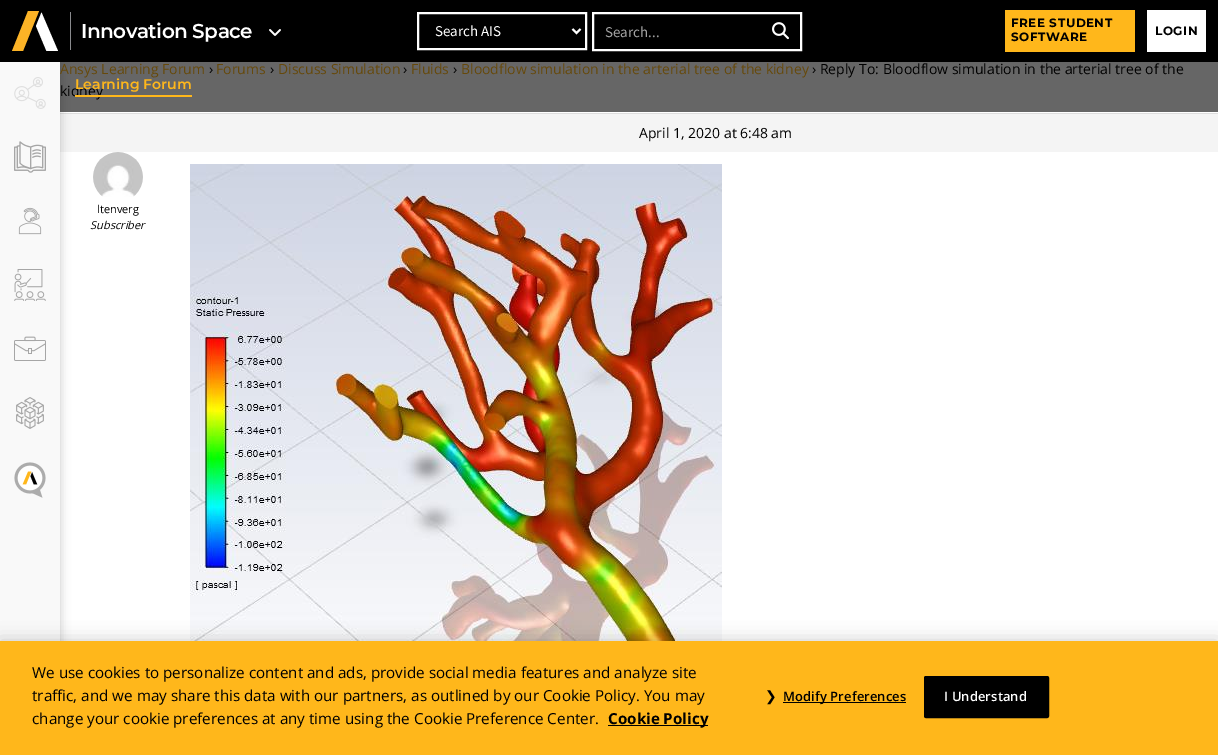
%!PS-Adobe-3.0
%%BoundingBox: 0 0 1218 755
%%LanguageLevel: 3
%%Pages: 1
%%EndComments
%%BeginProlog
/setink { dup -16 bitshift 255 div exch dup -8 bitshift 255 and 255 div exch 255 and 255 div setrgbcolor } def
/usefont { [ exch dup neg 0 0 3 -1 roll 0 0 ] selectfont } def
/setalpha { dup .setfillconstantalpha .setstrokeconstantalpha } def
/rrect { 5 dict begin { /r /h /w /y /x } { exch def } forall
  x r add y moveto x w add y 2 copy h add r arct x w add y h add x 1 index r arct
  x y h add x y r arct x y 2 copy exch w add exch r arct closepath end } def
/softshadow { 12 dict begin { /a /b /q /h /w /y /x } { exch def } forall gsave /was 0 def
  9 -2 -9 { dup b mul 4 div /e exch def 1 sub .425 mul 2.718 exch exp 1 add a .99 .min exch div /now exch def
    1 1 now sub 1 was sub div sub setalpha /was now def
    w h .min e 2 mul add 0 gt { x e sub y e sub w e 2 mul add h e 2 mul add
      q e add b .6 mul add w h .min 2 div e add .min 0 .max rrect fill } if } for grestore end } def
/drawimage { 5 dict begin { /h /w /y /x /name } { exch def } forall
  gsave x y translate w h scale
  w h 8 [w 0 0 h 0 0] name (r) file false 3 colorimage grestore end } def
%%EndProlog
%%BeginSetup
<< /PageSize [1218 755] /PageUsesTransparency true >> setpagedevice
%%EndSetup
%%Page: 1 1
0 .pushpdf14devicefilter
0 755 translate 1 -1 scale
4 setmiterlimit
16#FFFFFF setink
0 0 1218 755 rectfill
[
    [60 62 1158 50 16#666666]
    [60 114 1158 38 16#F4F4F4]
    [60 113 1158 1 16#DDDDDD]
] { aload pop setink rectfill } forall
/OpenSans-Regular 14 usefont
16#000000 setink
60 96 moveto (kidney) show
16#FFB71B setink
75 95 117 2 rectfill
16#000000 setink
0 65 60 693 0 5 0.22 softshadow
0 0 1218 62 rectfill
16#FCB326 setink
12 51 moveto 28 11 lineto 39 11 lineto 23 51 lineto closepath fill
16#FFFFFF setink
58 51 moveto 46.5 51 lineto 36 26 lineto 41.5 12.5 lineto closepath fill
16#898A8D setink
70 12 1 38 rectfill
/Montserrat-SemiBold 20 usefont
16#FFFFFF setink
81 38 moveto -0.5 0 (Innovation Space) ashow
(img1.raw) 269 29 12 7 drawimage
2 setlinewidth
418 13 168 36 rectstroke
572.5 29 moveto 576.5 33 lineto 580.5 29 lineto stroke
/SourceSansPro-Regular 15 usefont
435 36 moveto (Search AIS) show
593 13 208 37 rectstroke
16#A4A4A4 setink
605 37 moveto (Search...) show
(img2.raw) 772 22 17 18 drawimage
16#FFB71B setink
1005 10 130 42 rectfill
/Montserrat-Bold 12 usefont
16#000000 setink
1011 27 moveto 0.5 0 (FREE STUDENT) ashow
1011 41 moveto 0.5 0 (SOFTWARE) ashow
16#FFFFFF setink
1147 10 59 42 rectfill
16#000000 setink
1155 35 moveto 0.5 0 (LOGIN) ashow
16#F9F9F9 setink
0 62 60 579 rectfill
(img3.raw) 14 77 32 32 drawimage
(img4.raw) 14 141 32 32 drawimage
(img5.raw) 18 207 24 28 drawimage
(img6.raw) 14 269 32 32 drawimage
(img7.raw) 14 336 32 25 drawimage
(img8.raw) 16 397 28 32 drawimage
(img9.raw) 14 462 32 36 drawimage
/OpenSans-Regular 14 usefont
16#66490B setink
60 74 moveto (Ansys Learning Forum) show
16#000000 setink
209 74 moveto (›) show
16#66490B setink
216 74 moveto (Forums) show
16#000000 setink
270 74 moveto (›) show
16#66490B setink
278 74 moveto (Discuss Simulation) show
16#000000 setink
403 74 moveto (›) show
16#66490B setink
411 74 moveto (Fluids) show
16#000000 setink
453 74 moveto (›) show
16#66490B setink
461 74 moveto (Bloodflow simulation in the arterial tree of the kidney) show
16#000000 setink
812 74 moveto (› Reply To: Bloodflow simulation in the arterial tree of the) show
639 138 moveto (April 1, 2020 at 6:48 am) show
(img10.raw) 93 152 50 45 drawimage
/OpenSans-Regular 11 usefont
97 213 moveto (ltenverg) show
/OpenSans-Italic 11 usefont
90 229 moveto (Subscriber) show
(img11.raw) 190 164 532 477 drawimage
/Montserrat-SemiBold 14 usefont
16#FFB71B setink
75 89 moveto (Learning Forum) show
16#000000 setink
0 641 1218 114 0 9 0.2 softshadow
16#FFB71B setink
0 641 1218 114 rectfill
/OpenSans-Regular 15.2 usefont
16#000000 setink
[
    [(We use cookies to personalize content and ads, provide social media features and analyze site) 32 678]
    [(traffic, and we may share this data with our partners, as outlined by our Cookie Policy. You may) 32 701]
    [(change your cookie preferences at any time using the Cookie Preference Center.) 32 724]
] { aload pop moveto show } forall
608 725 100 1 rectfill
/OpenSans-Bold 15.2 usefont
608 724 moveto (Cookie Policy) show
/DejaVuSans-Regular 14 usefont
765 701 moveto 0.1 0 (❯) ashow
783 702 123 1 rectfill
/OpenSans-SemiBold 13 usefont
783 701 moveto 0.1 0 (Modify Preferences) ashow
924.5 676.5 124 41 1.5 rrect gsave fill grestore
1 setlinewidth
stroke
16#FFFFFF setink
944 701 moveto 0.1 0 (I Understand) ashow
.poppdf14devicefilter showpage
%%EOF
